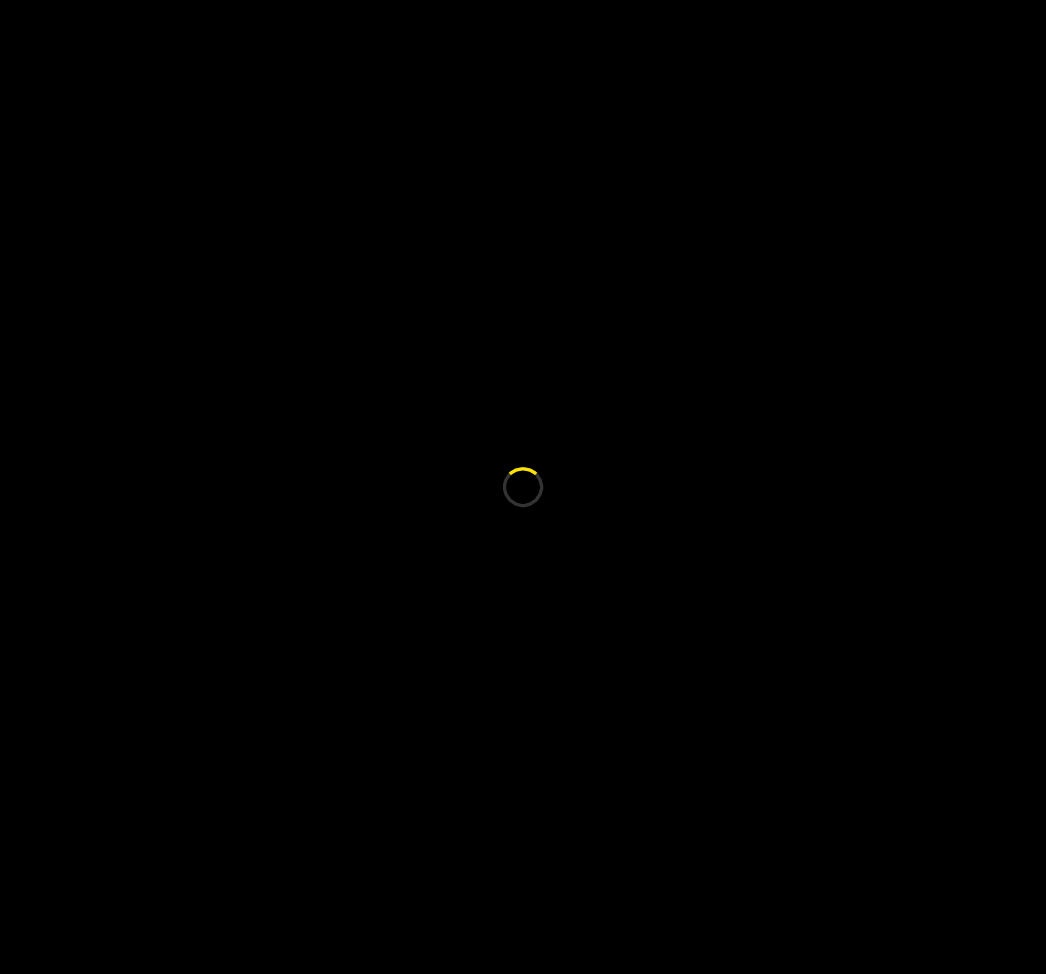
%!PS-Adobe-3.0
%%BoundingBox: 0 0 1046 974
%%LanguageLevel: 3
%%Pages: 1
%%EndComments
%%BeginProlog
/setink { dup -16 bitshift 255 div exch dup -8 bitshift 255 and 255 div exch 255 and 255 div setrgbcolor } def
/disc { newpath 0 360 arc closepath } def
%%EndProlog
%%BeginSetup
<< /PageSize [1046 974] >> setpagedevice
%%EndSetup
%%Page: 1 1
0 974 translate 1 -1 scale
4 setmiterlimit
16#000000 setink
0 0 1046 974 rectfill
16#333333 setink
3 setlinewidth
523 487 18.5 disc stroke
16#FEE200 setink
510 474 moveto 517 467 529 467 536 474 curveto stroke
showpage
%%EOF
